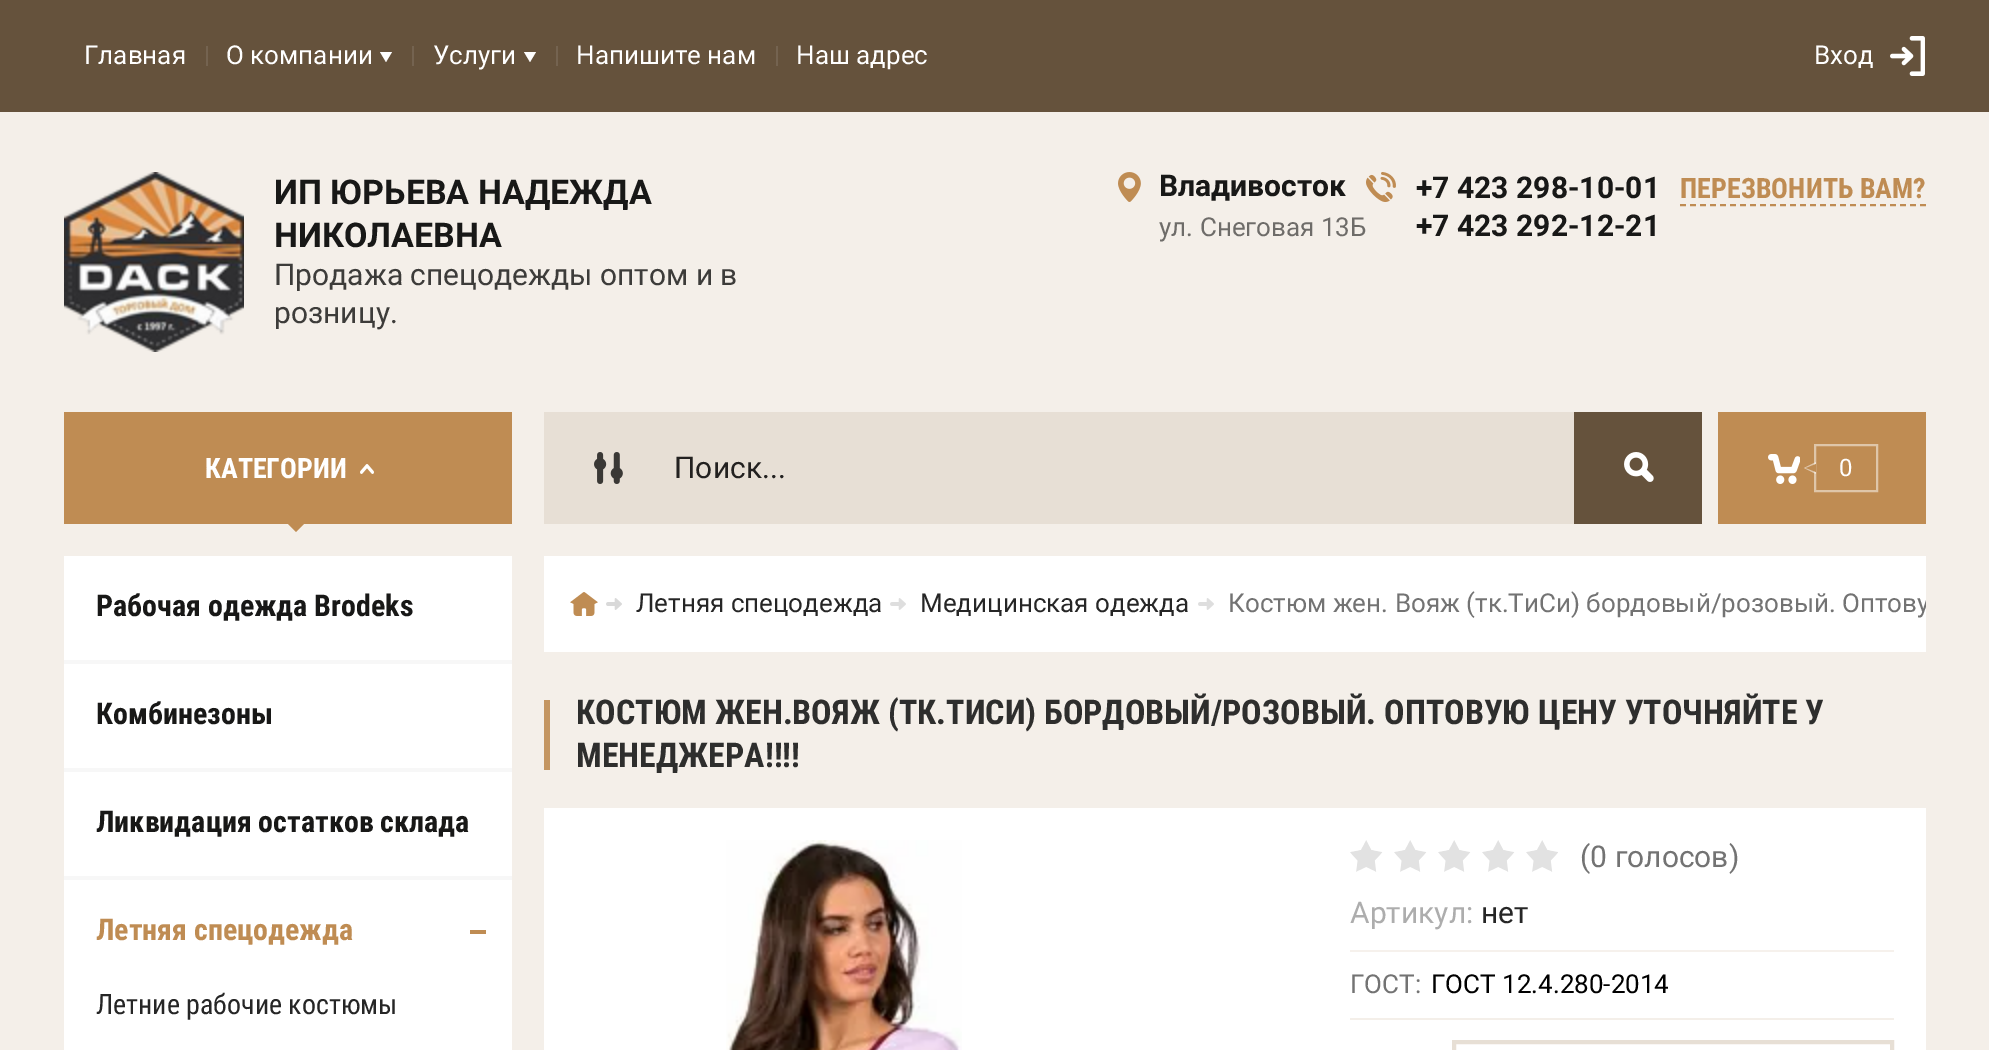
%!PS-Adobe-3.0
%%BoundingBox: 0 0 1989 1050
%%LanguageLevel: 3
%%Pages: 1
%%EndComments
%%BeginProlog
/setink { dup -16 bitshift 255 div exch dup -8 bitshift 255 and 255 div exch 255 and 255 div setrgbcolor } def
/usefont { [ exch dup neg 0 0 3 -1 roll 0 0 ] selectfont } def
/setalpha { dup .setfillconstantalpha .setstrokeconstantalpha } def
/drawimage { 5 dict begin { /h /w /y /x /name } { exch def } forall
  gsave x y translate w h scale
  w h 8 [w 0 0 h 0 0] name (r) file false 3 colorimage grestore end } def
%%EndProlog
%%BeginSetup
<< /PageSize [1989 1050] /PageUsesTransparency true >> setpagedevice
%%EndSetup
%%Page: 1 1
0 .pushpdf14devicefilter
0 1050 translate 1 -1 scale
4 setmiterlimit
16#F4EFE9 setink
0 0 1989 1050 rectfill
16#65523C setink
0 0 1989 112 rectfill
/Roboto-Regular 26 usefont
16#FFFFFF setink
84 64 moveto (Главная) show
16#746350 setink
206 46 2 20 rectfill
16#FFFFFF setink
226 64 moveto (О компании) show
380 52 moveto 392 52 lineto 386 62 lineto closepath fill
16#746350 setink
412 46 2 20 rectfill
16#FFFFFF setink
433 64 moveto (Услуги) show
524 52 moveto 536 52 lineto 530 62 lineto closepath fill
16#746350 setink
556 46 2 20 rectfill
16#FFFFFF setink
576 64 moveto (Напишите нам) show
16#746350 setink
776 46 2 20 rectfill
16#FFFFFF setink
796 64 moveto (Наш адрес) show
(img1.raw) 1890 36 35 40 drawimage
1814 64 moveto (Вход) show
(img2.raw) 64 172 180 180 drawimage
/Roboto-Bold 34 usefont
16#181817 setink
274 204 moveto (ИП ЮРЬЕВА НАДЕЖДА) show
274 247 moveto (НИКОЛАЕВНА) show
/Roboto-Regular 30 usefont
16#3D3C3A setink
274 285 moveto (Продажа спецодежды оптом и в) show
274 323 moveto (розницу.) show
(img3.raw) 1118 172 23 30 drawimage
/Roboto-Bold 30 usefont
16#181817 setink
1159 196 moveto (Владивосток) show
/Roboto-Regular 26 usefont
16#6E6C69 setink
1159 236 moveto (ул. Снеговая 13Б) show
(img4.raw) 1366 172 30 30 drawimage
/Roboto-Bold 30 usefont
16#181817 setink
1416 198 moveto (+7 423 298-10-01) show
1416 236 moveto (+7 423 292-12-21) show
/RobotoCondensed-Bold 28 usefont
16#BF8C53 setink
1680 198 moveto (ПЕРЕЗВОНИТЬ ВАМ?) show
2 setlinewidth
[6 4] 0 setdash
1680 205 moveto 1926 205 lineto stroke
64 412 448 112 rectfill
16#FFFFFF setink
205 478 moveto (КАТЕГОРИИ) show
(img5.raw) 360 464 14 10 drawimage
16#BF8C53 setink
288 524 moveto 304 524 lineto 296 532 lineto closepath fill
16#E7DFD5 setink
544 412 1030 112 rectfill
(img6.raw) 594 452 29 32 drawimage
/Roboto-Regular 30 usefont
16#232120 setink
674 478 moveto (Поиск...) show
16#65523C setink
1574 412 128 112 rectfill
(img7.raw) 1624 452 30 30 drawimage
16#BF8C53 setink
1718 412 208 112 rectfill
(img8.raw) 1768 454 32 30 drawimage
16#DFC6A9 setink
[] 0 setdash
1815 445 62 46 rectstroke
0.5 setalpha
16#FFFFFF setink
1816 462 moveto 1816 474 lineto 1804 468 lineto closepath fill
/Roboto-Regular 24 usefont
1 setalpha
1839 476 moveto (0) show
16#BF8C53 setink
1816 464 moveto 1816 472 lineto 1806 468 lineto closepath fill
16#FFFFFF setink
64 556 448 494 rectfill
16#F7F7F7 setink
64 660 448 4 rectfill
/RobotoCondensed-Bold 30 usefont
16#181817 setink
96 616 moveto (Рабочая одежда Brodeks) show
16#F7F7F7 setink
64 768 448 4 rectfill
16#181817 setink
96 724 moveto (Комбинезоны) show
16#F7F7F7 setink
64 876 448 4 rectfill
16#181817 setink
96 832 moveto (Ликвидация остатков склада) show
16#BF8C53 setink
96 940 moveto (Летняя спецодежда) show
470 930 16 4 rectfill
/RobotoCondensed-Regular 28 usefont
16#262626 setink
96 1014 moveto (Летние рабочие костюмы) show
16#FFFFFF setink
544 556 1382 96 rectfill
(img9.raw) 570 592 28 24 drawimage
(img10.raw) 606 598 16 12 drawimage
/Roboto-Regular 26 usefont
16#262626 setink
636 612 moveto (Летняя спецодежда) show
(img11.raw) 890 598 16 12 drawimage
920 612 moveto (Медицинская одежда) show
(img11.raw) 1198 598 16 12 drawimage
gsave
544 556 1382 96 rectclip
16#737373 setink
1228 612 moveto (Костюм жен. Вояж \(тк.ТиСи\) бордовый/розовый. Оптову) show
grestore
16#C49662 setink
544 700 6 70 rectfill
/RobotoCondensed-Bold 34 usefont
16#2E2E2D setink
576 724 moveto (КОСТЮМ ЖЕН.ВОЯЖ \(ТК.ТИСИ\) БОРДОВЫЙ/РОЗОВЫЙ. ОПТОВУЮ ЦЕНУ УТОЧНЯЙТЕ У) show
576 767 moveto (МЕНЕДЖЕРА!!!!) show
16#FFFFFF setink
544 808 1382 242 rectfill
(img12.raw) 726 840 236 210 drawimage
(img13.raw) 1350 840 208 32 drawimage
/Roboto-Regular 30 usefont
16#737373 setink
1580 867 moveto (\(0 голосов\)) show
16#F6F1EC setink
1350 950 544 2 rectfill
16#ADADAD setink
1350 923 moveto (Артикул:) show
16#262626 setink
1481 923 moveto (нет) show
16#F4EFE9 setink
1350 1018 544 2 rectfill
/Roboto-Regular 26 usefont
16#737373 setink
1350 993 moveto (ГОСТ:) show
16#000000 setink
1431 993 moveto (ГОСТ 12.4.280-2014) show
16#E7DFD5 setink
4 setlinewidth
1454 1042 438 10 rectstroke
.poppdf14devicefilter showpage
%%EOF
